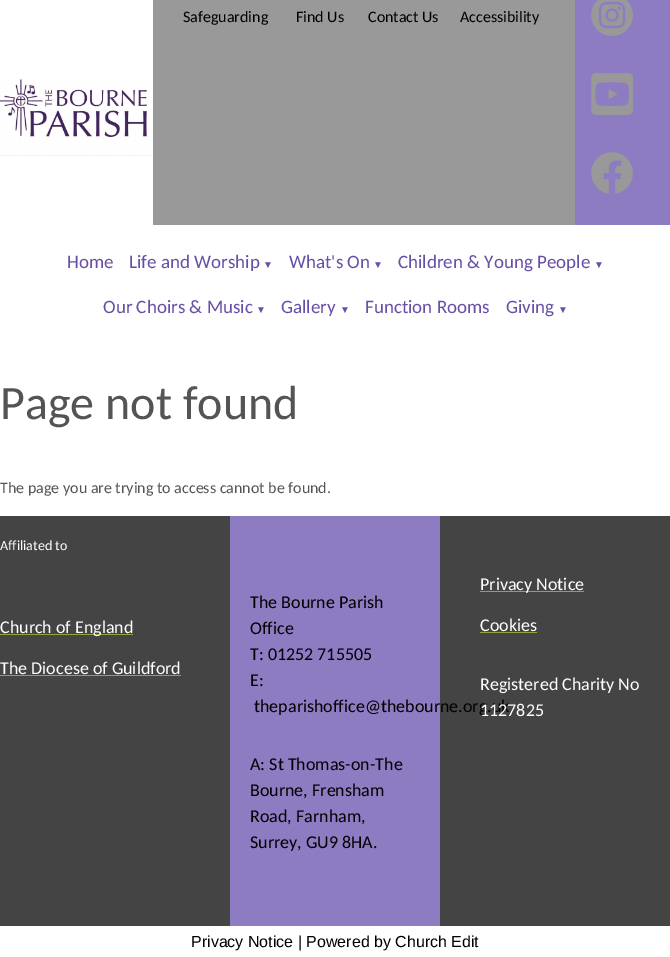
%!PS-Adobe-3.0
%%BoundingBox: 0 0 670 957
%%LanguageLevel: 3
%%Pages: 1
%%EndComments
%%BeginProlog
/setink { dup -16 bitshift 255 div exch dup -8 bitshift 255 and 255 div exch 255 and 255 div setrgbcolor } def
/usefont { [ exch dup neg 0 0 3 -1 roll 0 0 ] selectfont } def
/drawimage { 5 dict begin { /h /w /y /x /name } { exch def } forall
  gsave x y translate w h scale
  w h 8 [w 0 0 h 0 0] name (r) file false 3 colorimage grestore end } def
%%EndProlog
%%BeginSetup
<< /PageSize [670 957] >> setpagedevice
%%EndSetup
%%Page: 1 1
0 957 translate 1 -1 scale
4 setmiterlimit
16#FFFFFF setink
0 0 670 957 rectfill
16#999999 setink
153 0 422 225 rectfill
/Carlito-Regular 16 usefont
16#000000 setink
[
    [(Safeguarding) 183 22]
    [(Find Us) 296 22]
    [(Contact Us) 368 22]
    [(Accessibility) 460 22]
] { aload pop moveto show } forall
16#8E7CC3 setink
575 0 95 225 rectfill
(img1.raw) 591 0 42 36 drawimage
(img2.raw) 591 73 42 42 drawimage
(img3.raw) 591 152 42 42 drawimage
(img4.raw) 0 78 153 78 drawimage
/Carlito-Regular 19 usefont
16#674EA7 setink
67 268 moveto (Home) show
129 268 moveto (Life and Worship) show
/LiberationSerif-Regular 10 usefont
263 268 moveto (▼) show
/Carlito-Regular 19 usefont
289 268 moveto (What's On) show
/LiberationSerif-Regular 10 usefont
373 268 moveto (▼) show
/Carlito-Regular 19 usefont
398 268 moveto (Children & Young People) show
/LiberationSerif-Regular 10 usefont
594 268 moveto (▼) show
/Carlito-Regular 19 usefont
103 313 moveto (Our Choirs & Music) show
/LiberationSerif-Regular 10 usefont
256 313 moveto (▼) show
/Carlito-Regular 19 usefont
281 313 moveto (Gallery) show
/LiberationSerif-Regular 10 usefont
340 313 moveto (▼) show
/Carlito-Regular 19 usefont
365 313 moveto (Function Rooms) show
506 313 moveto (Giving) show
/LiberationSerif-Regular 10 usefont
558 313 moveto (▼) show
/Carlito-Regular 48 usefont
16#545454 setink
0 419 moveto (Page not found) show
/Carlito-Regular 16 usefont
0 493 moveto (The page you are trying to access cannot be found.) show
16#444444 setink
0 516 670 410 rectfill
/Carlito-Regular 14 usefont
16#FFFFFF setink
0 550 moveto (Affiliated to) show
16#99A33E setink
0 634 133 1 rectfill
/Carlito-Regular 18 usefont
16#FFFFFF setink
0 633 moveto (Church of England) show
0 674 moveto (The Diocese of Guildford) show
16#99A33E setink
0 675 181 1 rectfill
16#8E7CC3 setink
230 516 210 410 rectfill
16#000000 setink
[
    [(The Bourne Parish) 250 608]
    [(Office) 250 634]
    [(T: 01252 715505) 250 660]
    [(E:) 250 686]
    [(theparishoffice@thebourne.org.uk) 254 712]
    [(A: St Thomas-on-The) 250 770]
    [(Bourne, Frensham) 250 796]
    [(Road, Farnham,) 250 822]
    [(Surrey, GU9 8HA.) 250 848]
] { aload pop moveto show } forall
16#99A33E setink
480 591 104 1 rectfill
16#FFFFFF setink
480 590 moveto (Privacy Notice) show
480 631 moveto (Cookies) show
16#99A33E setink
480 632 57 1 rectfill
16#FFFFFF setink
480 690 moveto (Registered Charity No) show
480 716 moveto (1127825) show
/LiberationSans-Regular 16 usefont
16#000000 setink
191 947 moveto (Privacy Notice | Powered by Church Edit) show
showpage
%%EOF
